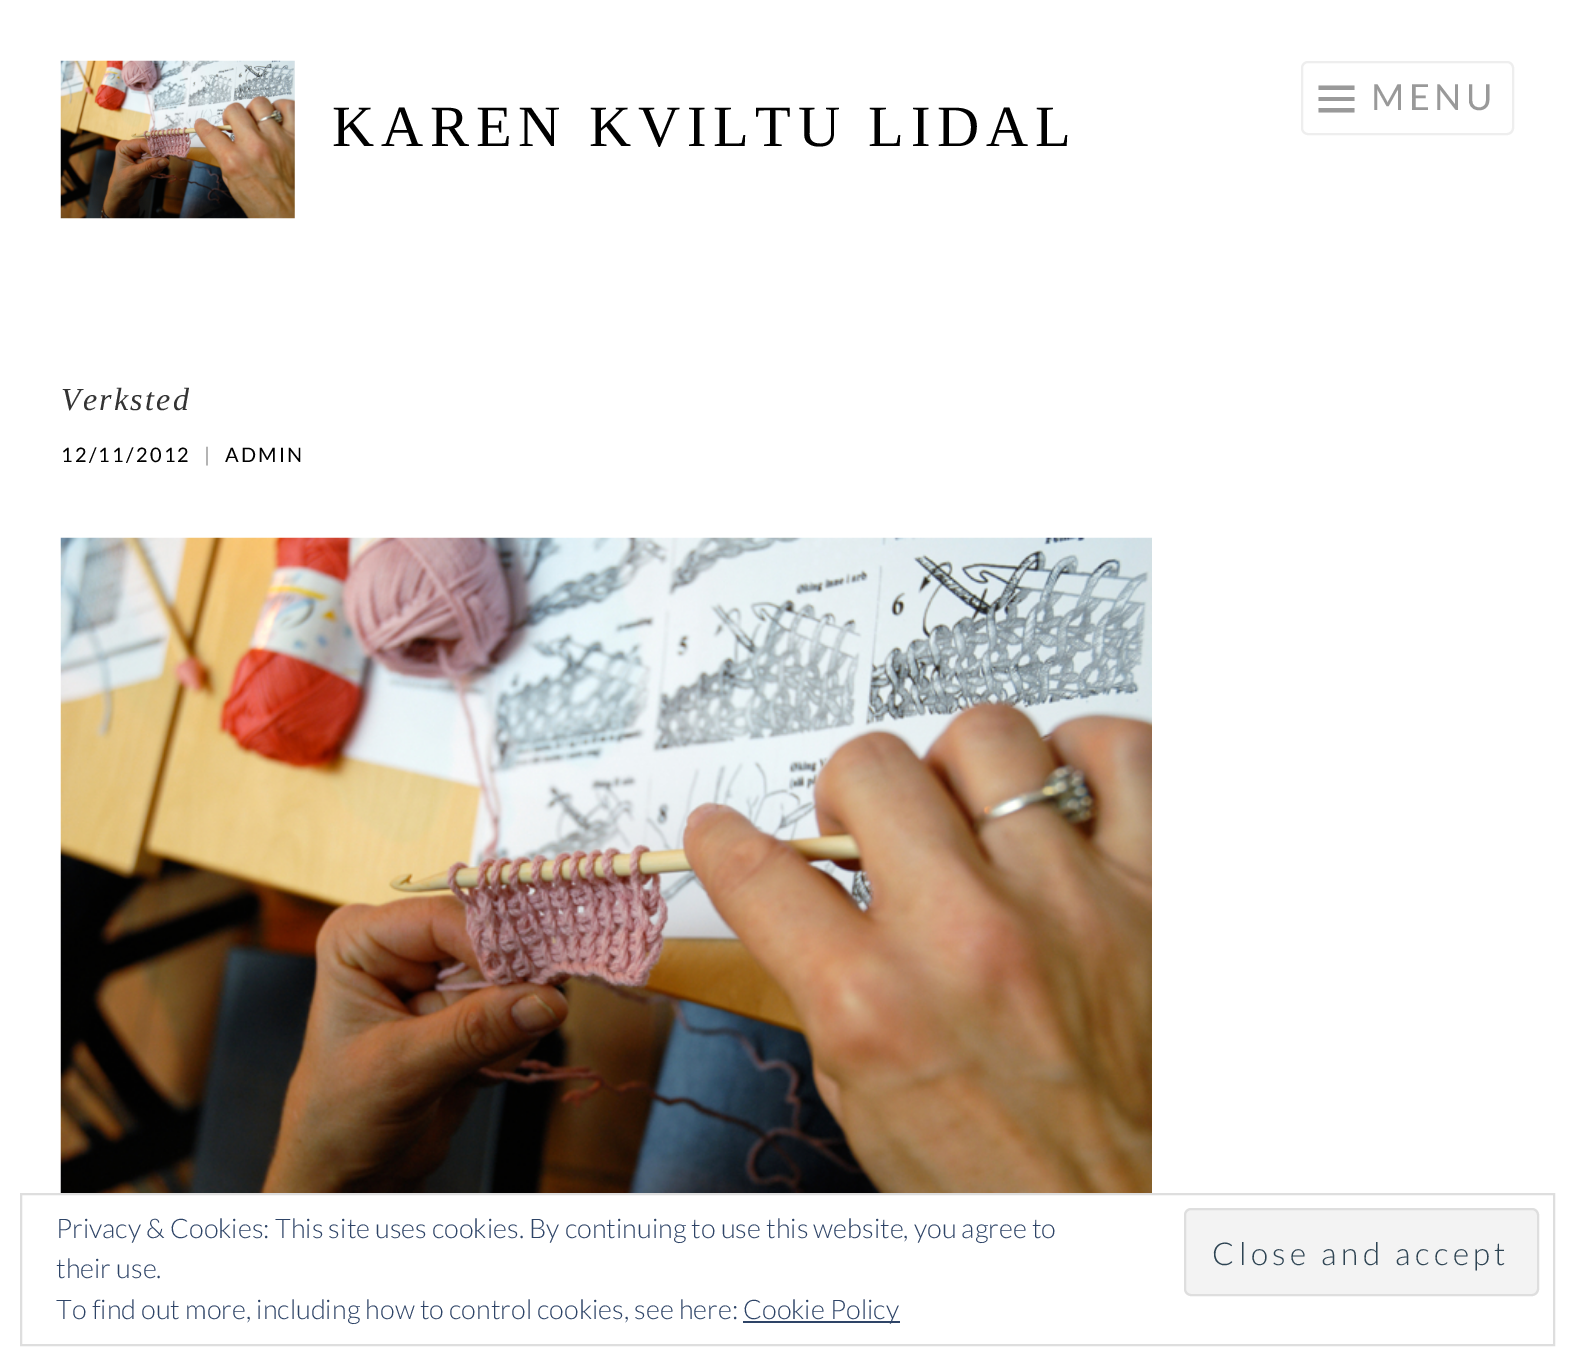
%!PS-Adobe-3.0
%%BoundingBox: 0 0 1574 1364
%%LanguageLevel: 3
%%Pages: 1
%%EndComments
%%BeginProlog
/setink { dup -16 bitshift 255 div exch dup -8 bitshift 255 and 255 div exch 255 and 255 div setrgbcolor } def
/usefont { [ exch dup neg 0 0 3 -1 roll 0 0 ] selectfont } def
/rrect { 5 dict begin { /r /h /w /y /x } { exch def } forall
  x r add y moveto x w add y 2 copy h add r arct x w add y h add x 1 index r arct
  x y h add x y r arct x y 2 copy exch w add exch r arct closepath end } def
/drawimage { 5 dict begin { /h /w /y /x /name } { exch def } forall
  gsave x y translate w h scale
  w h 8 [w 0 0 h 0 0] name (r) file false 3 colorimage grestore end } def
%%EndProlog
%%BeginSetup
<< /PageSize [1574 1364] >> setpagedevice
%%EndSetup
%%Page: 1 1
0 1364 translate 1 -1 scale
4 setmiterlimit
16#FFFFFF setink
0 0 1574 1364 rectfill
16#EEEEEE setink
2 setlinewidth
1302 62 211 72 6 rrect stroke
16#999999 setink
1318.5 112.5 moveto 1318.5 108 lineto 1354.5 108 lineto 1354.5 112.5 lineto closepath 1318.5 85.5 moveto 1354.5 85.5 lineto 1354.5 90 lineto 1318.5 90 lineto closepath 1318.5 101 moveto 1318.5 97 lineto 1354.5 97 lineto 1354.5 101 lineto closepath fill
/Lato-Regular 36 usefont
1371 110 moveto 4.5 0 (MENU) ashow
(img1.raw) 60 60 235 159 drawimage
/LiberationSerif-Regular 58.5 usefont
16#000000 setink
332 146 moveto 6.75 0 (KAREN KVILTU LIDAL) ashow
/LiberationSerif-Italic 32 usefont
16#333333 setink
61 410 moveto 2.25 0 (Verksted) ashow
/Lato-Regular 20 usefont
16#000000 setink
61 462 moveto 2.25 0 (12/11/2012) ashow
16#999999 setink
204 462 moveto 2.25 0 (|) ashow
16#000000 setink
225 462 moveto 2.25 0 (ADMIN) ashow
(img2.raw) 60 537 1092 656 drawimage
16#DEDEDE setink
21 1194 1533 151 rectstroke
/Lato-Light 27 usefont
16#2E4467 setink
56 1238 moveto (Privacy & Cookies: This site uses cookies. By continuing to use this website, you agree to) show
56 1278 moveto (their use.) show
16#F3F3F3 setink
1185 1209 353 86 6 rrect gsave fill grestore
16#DEDEDE setink
stroke
/Lato-Light 31.5 usefont
16#2E4453 setink
1212 1265 moveto 4.5 0 (Close and accept) ashow
/Lato-Light 27 usefont
16#2E4467 setink
56 1319 moveto (To find out more, including how to control cookies, see here:) show
743 1321 157 2 rectfill
743 1319 moveto (Cookie Policy) show
showpage
%%EOF
